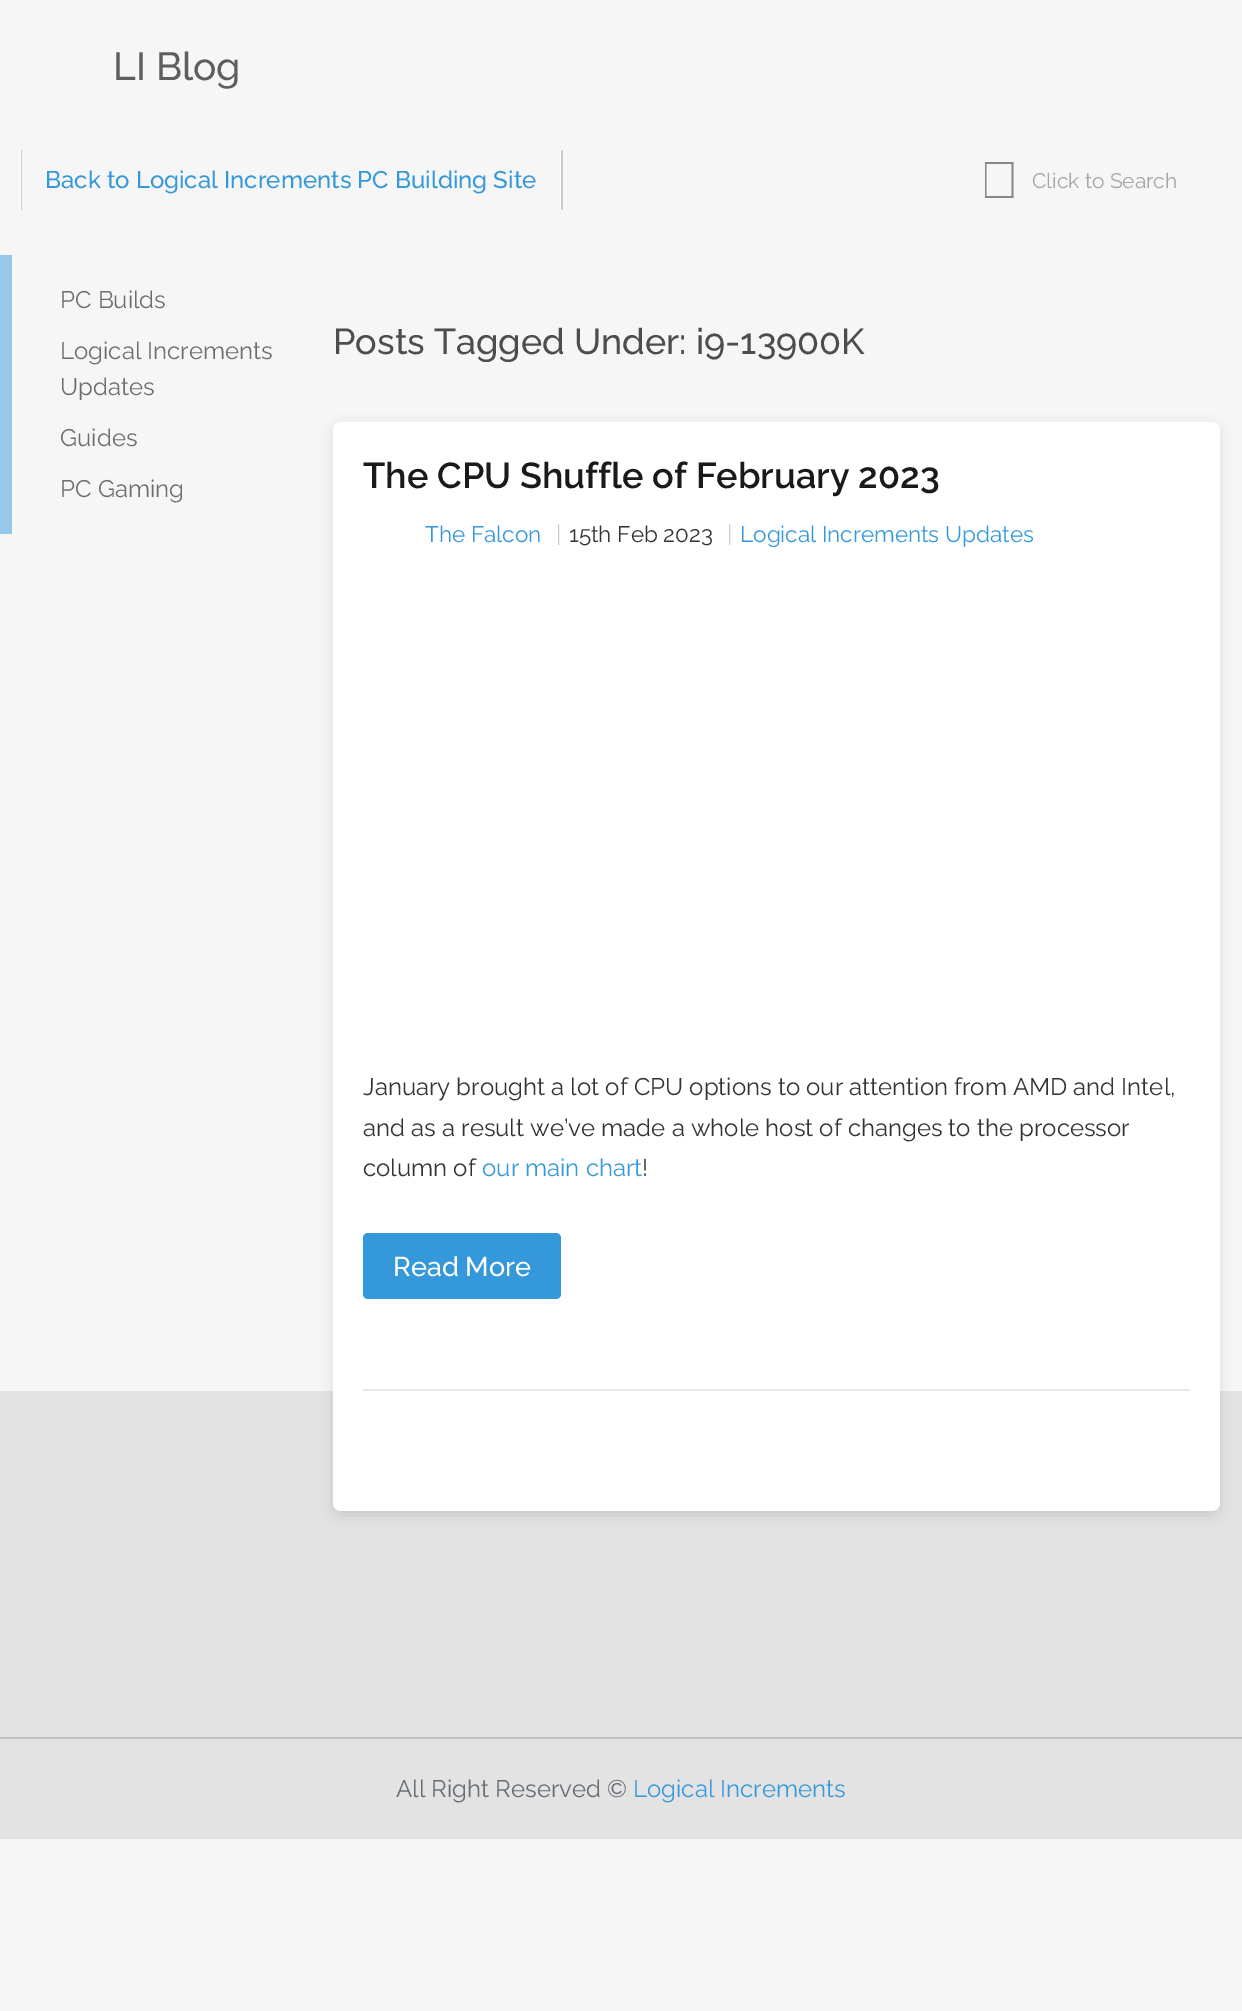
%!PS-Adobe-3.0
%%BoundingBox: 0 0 1242 2011
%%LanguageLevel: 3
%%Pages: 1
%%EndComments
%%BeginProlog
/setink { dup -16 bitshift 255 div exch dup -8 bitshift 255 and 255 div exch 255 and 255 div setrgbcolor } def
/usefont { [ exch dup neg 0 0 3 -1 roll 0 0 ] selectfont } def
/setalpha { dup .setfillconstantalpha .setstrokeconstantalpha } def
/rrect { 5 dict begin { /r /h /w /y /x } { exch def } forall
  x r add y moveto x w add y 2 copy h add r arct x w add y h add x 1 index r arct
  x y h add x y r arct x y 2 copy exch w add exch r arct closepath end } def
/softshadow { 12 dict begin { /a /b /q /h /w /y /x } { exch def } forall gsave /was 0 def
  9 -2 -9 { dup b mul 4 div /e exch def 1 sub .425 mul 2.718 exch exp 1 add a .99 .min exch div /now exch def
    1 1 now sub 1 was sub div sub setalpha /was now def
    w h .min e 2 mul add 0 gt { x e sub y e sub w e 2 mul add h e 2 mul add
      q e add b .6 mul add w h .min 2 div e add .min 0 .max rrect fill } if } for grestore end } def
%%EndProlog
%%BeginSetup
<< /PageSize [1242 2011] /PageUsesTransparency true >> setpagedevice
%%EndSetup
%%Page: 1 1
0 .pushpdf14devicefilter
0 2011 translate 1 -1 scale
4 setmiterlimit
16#F6F6F6 setink
0 0 1242 2011 rectfill
/Raleway-Medium 39 usefont
16#5E5E5E setink
113 80 moveto (LI Blog) show
[
    [561 150 2 60 16#C7CAD0]
    [560 150 1 60 16#FFFFFF]
    [20 150 1 60 16#FFFFFF]
    [21 150 1 60 16#C7CAD0]
] { aload pop setink rectfill } forall
/Raleway-Medium 24 usefont
16#3498DB setink
45 188 moveto (Back to Logical Increments PC Building Site) show
16#888888 setink
985 162 moveto 1013.5 162 lineto 1013.5 198 lineto 985 198 lineto closepath 986.5 164 moveto 986.5 196 lineto 1011.5 196 lineto 1011.5 164 lineto closepath fill
/Raleway-Regular 21 usefont
16#A6A6A6 setink
1032 188 moveto (Click to Search) show
16#97C8E9 setink
0 255 12 279 rectfill
/Raleway-Regular 24 usefont
16#6E6E6E setink
[
    [(PC Builds) 60 308]
    [(Logical Increments) 60 359]
    [(Updates) 60 395]
    [(Guides) 60 446]
    [(PC Gaming) 60 497]
] { aload pop moveto show } forall
/Raleway-Medium 36 usefont
16#4D4D4D setink
333 354 moveto (Posts Tagged Under: i9-13900K) show
16#E3E3E3 setink
0 1391 1242 448 rectfill
16#000000 setink
332 426 886 1089 8 7.5 0.05 softshadow
335 426 886 1089 8 7.5 0.05 softshadow
16#FFFFFF setink
333 422 887 1089 8 rrect fill
/Raleway-SemiBold 36 usefont
16#1A1A1A setink
363 488 moveto (The CPU Shuffle of February 2023) show
/Raleway-Regular 22.5 usefont
16#3498DB setink
425 542 moveto (The Falcon) show
16#C7CAD0 setink
556 542 moveto (|) show
16#333333 setink
569 542 moveto (15th Feb 2023) show
16#C7CAD0 setink
727 542 moveto (|) show
16#3498DB setink
740 542 moveto (Logical Increments Updates) show
/Raleway-Regular 24 usefont
16#333333 setink
[
    [(January brought a lot of CPU options to our attention from AMD and Intel,) 363 1095]
    [(and as a result we’ve made a whole host of changes to the processor) 363 1136]
    [(column of) 363 1176]
] { aload pop moveto show } forall
16#3498DB setink
482 1176 moveto (our main chart) show
16#333333 setink
642 1176 moveto (!) show
16#3498DB setink
363 1233 198 66 5 rrect fill
/Raleway-Medium 27 usefont
16#FFFFFF setink
393 1276 moveto (Read More) show
16#E7E7E7 setink
363 1389 827 2 rectfill
16#C1C1C1 setink
0 1737 1242 2 rectfill
/Raleway-Regular 24 usefont
16#666B74 setink
396 1797 moveto (All Right Reserved ©) show
16#3498DB setink
633 1797 moveto (Logical Increments) show
.poppdf14devicefilter showpage
%%EOF
